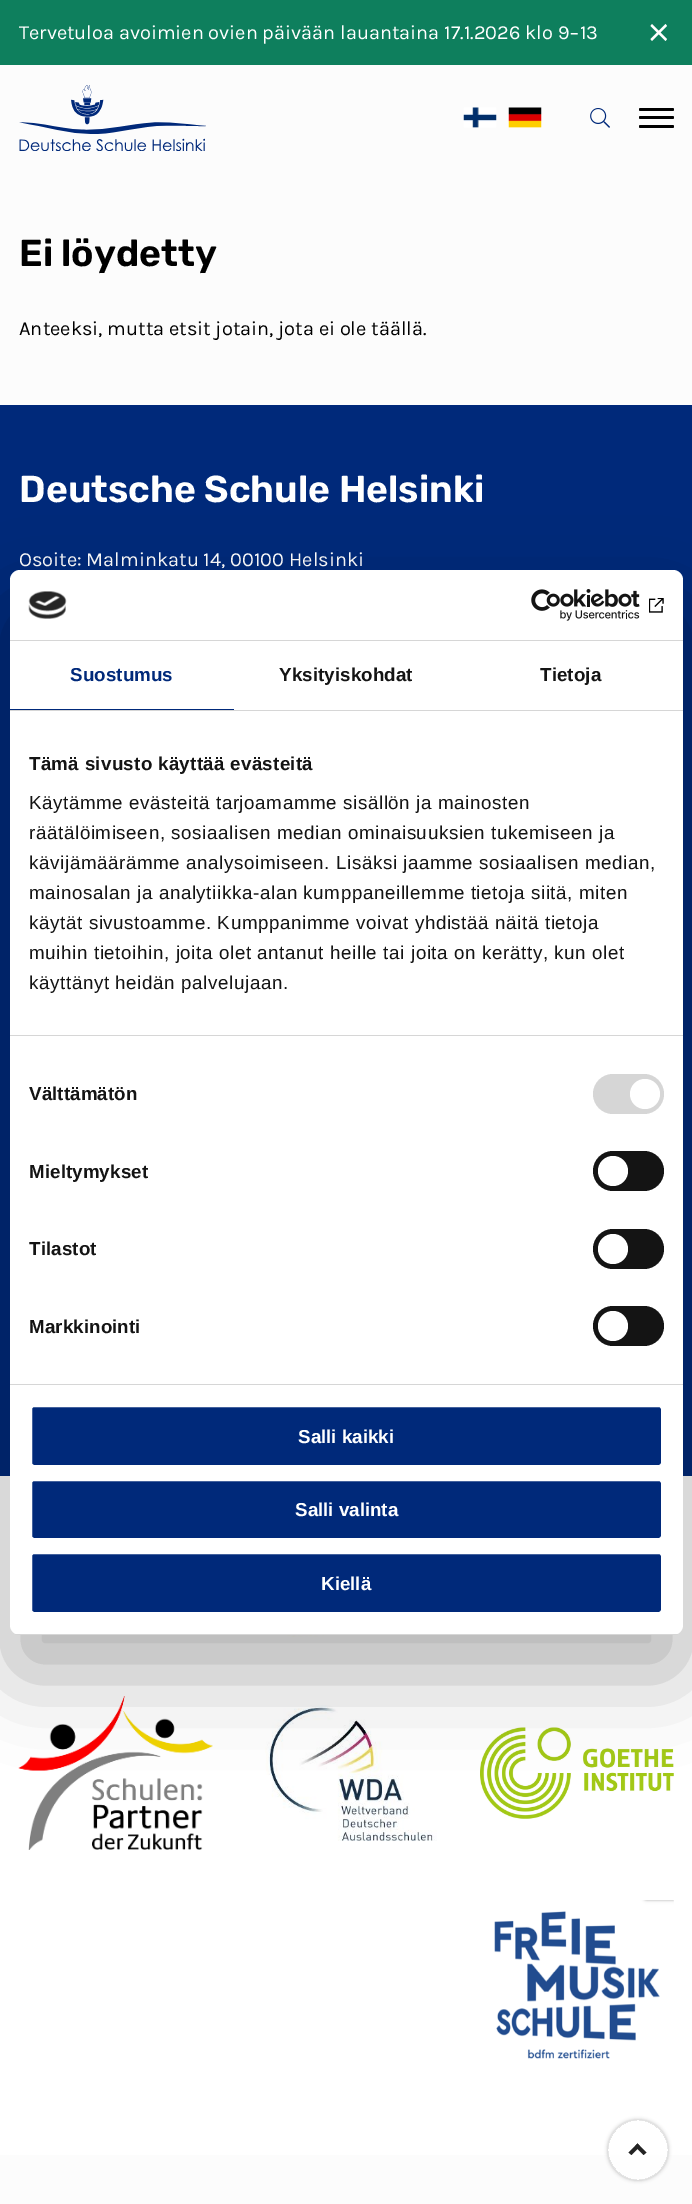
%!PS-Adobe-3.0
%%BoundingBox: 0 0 692 2204
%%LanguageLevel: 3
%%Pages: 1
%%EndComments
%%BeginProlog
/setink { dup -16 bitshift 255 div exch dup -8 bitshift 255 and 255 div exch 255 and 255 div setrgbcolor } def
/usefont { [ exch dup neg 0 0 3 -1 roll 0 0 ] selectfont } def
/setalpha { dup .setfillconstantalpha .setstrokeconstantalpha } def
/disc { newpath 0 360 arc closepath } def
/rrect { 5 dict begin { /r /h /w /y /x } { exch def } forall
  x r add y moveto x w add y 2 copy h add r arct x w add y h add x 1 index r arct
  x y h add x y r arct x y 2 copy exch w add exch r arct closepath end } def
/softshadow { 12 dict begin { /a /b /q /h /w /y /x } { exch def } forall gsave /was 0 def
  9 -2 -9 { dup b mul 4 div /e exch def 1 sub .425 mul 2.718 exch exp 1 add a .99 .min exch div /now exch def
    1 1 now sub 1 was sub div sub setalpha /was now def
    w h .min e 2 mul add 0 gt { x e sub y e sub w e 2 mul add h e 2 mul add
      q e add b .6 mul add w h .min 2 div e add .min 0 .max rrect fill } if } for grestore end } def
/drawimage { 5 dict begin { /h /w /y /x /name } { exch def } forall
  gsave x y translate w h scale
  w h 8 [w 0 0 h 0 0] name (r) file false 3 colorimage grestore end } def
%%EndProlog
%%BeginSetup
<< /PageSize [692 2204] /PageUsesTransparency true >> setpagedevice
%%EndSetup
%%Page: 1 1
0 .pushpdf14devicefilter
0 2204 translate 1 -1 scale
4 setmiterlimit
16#FCFCFC setink
0 0 692 2204 rectfill
16#0E7F5D setink
0 0 692 65 rectfill
/Karla-Regular 20 usefont
16#FFFFFF setink
19 39 moveto (Tervetuloa avoimien ovien päivään lauantaina 17.1.2026 klo 9−13) show
652 24 moveto 667 39 lineto 665.5 41 lineto 650.5 26 lineto closepath fill
650.5 39 moveto 665.5 24 lineto 667 26 lineto 652 41 lineto closepath fill
(img1.raw) 19 85 187 66 drawimage
(img2.raw) 463 107 34 21 drawimage
(img3.raw) 508 107 34 21 drawimage
(img4.raw) 590 108 20 20 drawimage
16#000000 setink
639 108 35 3 1.5 rrect fill
639 116 35 3 1.5 rrect fill
639 125 35 3 1.5 rrect fill
/Rubik-SemiBold 37.5 usefont
19 266 moveto (Ei löydetty) show
/Karla-Regular 20 usefont
19 335 moveto (Anteeksi, mutta etsit jotain, jota ei ole täällä.) show
16#00297A setink
0 405 692 1071 rectfill
/Rubik-SemiBold 37.5 usefont
16#FFFFFF setink
19 502 moveto (Deutsche Schule Helsinki) show
/Karla-Regular 20 usefont
19 566 moveto (Osoite: Malminkatu 14, 00100 Helsinki) show
0 1476 692 679 rectfill
(img5.raw) 262 1635 164 2 drawimage
(img6.raw) 18 1696 195 154 drawimage
(img7.raw) 265 1705 172 136 drawimage
(img8.raw) 480 1727 194 92 drawimage
(img9.raw) 494 1900 180 159 drawimage
16#000000 setink
10 610 673 1065 10 42.5 0.3 softshadow
16#FFFFFF setink
10 570 673 1065 10 rrect fill
16#D6D6D6 setink
10 640 673 1 rectfill
(img10.raw) 28 591 39 28 drawimage
(img11.raw) 531 589 109 32 drawimage
(img12.raw) 649 598 15 15 drawimage
10 710 673 1 rectfill
16#00297A setink
10 709 224 1 rectfill
/LiberationSans-Bold 18.75 usefont
70 681 moveto 0.1 0 (Suostumus) ashow
16#141414 setink
279 681 moveto 0.1 0 (Yksityiskohdat) ashow
540 681 moveto 0.1 0 (Tietoja) ashow
16#D6D6D6 setink
10 1035 673 1 rectfill
16#141414 setink
29 770 moveto 0.3 0 (Tämä sivusto käyttää evästeitä) ashow
/LiberationSans-Regular 18.75 usefont
29 809 moveto 0.62 0 (Käytämme evästeitä tarjoamamme sisällön ja mainosten) ashow
29 839 moveto 0.62 0 (räätälöimiseen, sosiaalisen median ominaisuuksien tukemiseen ja) ashow
29 869 moveto 0.62 0 (kävijämäärämme analysoimiseen. Lisäksi jaamme sosiaalisen median,) ashow
29 899 moveto 0.62 0 (mainosalan ja analytiikka-alan kumppaneillemme tietoja siitä, miten) ashow
29 929 moveto 0.62 0 (käytät sivustoamme. Kumppanimme voivat yhdistää näitä tietoja) ashow
29 959 moveto 0.62 0 (muihin tietoihin, joita olet antanut heille tai joita on kerätty, kun olet) ashow
29 989 moveto 0.62 0 (käyttänyt heidän palvelujaan.) ashow
16#D6D6D6 setink
10 1384 673 1 rectfill
/LiberationSans-Bold 18.75 usefont
16#141414 setink
29 1100 moveto 0.1 0 (Välttämätön) ashow
16#D6D6D6 setink
593 1074 71 40 20 rrect fill
16#FFFFFF setink
645 1094 15 disc fill
16#141414 setink
29 1178 moveto 0.1 0 (Mieltymykset) ashow
593 1151 71 40 20 rrect fill
16#FFFFFF setink
613 1171 15 disc fill
16#141414 setink
29 1255 moveto 0.1 0 (Tilastot) ashow
593 1229 71 40 20 rrect fill
16#FFFFFF setink
613 1249 15 disc fill
16#141414 setink
29 1333 moveto 0.1 0 (Markkinointi) ashow
593 1306 71 40 20 rrect fill
16#FFFFFF setink
613 1326 15 disc fill
gsave
10 570 673 1065 10 rrect clip newpath
16#D6D6D6 setink
10 1634 673 1 rectfill
grestore
16#00297A setink
30.5 1405.5 632 61 3.5 rrect gsave fill grestore
16#FFFFFF setink
3 setlinewidth
stroke
298 1443 moveto (Salli kaikki) show
16#00297A setink
30.5 1479.5 632 60 3.5 rrect gsave fill grestore
16#FFFFFF setink
stroke
295 1516 moveto (Salli valinta) show
16#00297A setink
30.5 1552.5 632 61 3.5 rrect gsave fill grestore
16#FFFFFF setink
stroke
321 1590 moveto (Kiellä) show
gsave
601 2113 moveto 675 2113 lineto 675 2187 lineto 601 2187 lineto closepath 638 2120 moveto 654.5 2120 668 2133.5 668 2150 curveto 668 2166.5 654.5 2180 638 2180 curveto 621.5 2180 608 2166.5 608 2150 curveto 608 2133.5 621.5 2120 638 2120 curveto closepath eoclip newpath
16#000000 setink
608 2120 60 60 30 2 0.3 softshadow
grestore
0.5 setalpha
638 2150 30 disc fill
1 setalpha
16#232323 setink
637.5 2143.5 moveto 646.5 2152.5 lineto 643.5 2155 lineto 635 2146.5 lineto closepath fill
637.5 2143.5 moveto 640 2146.5 lineto 631.5 2155 lineto 628.5 2152.5 lineto closepath fill
.poppdf14devicefilter showpage
%%EOF
